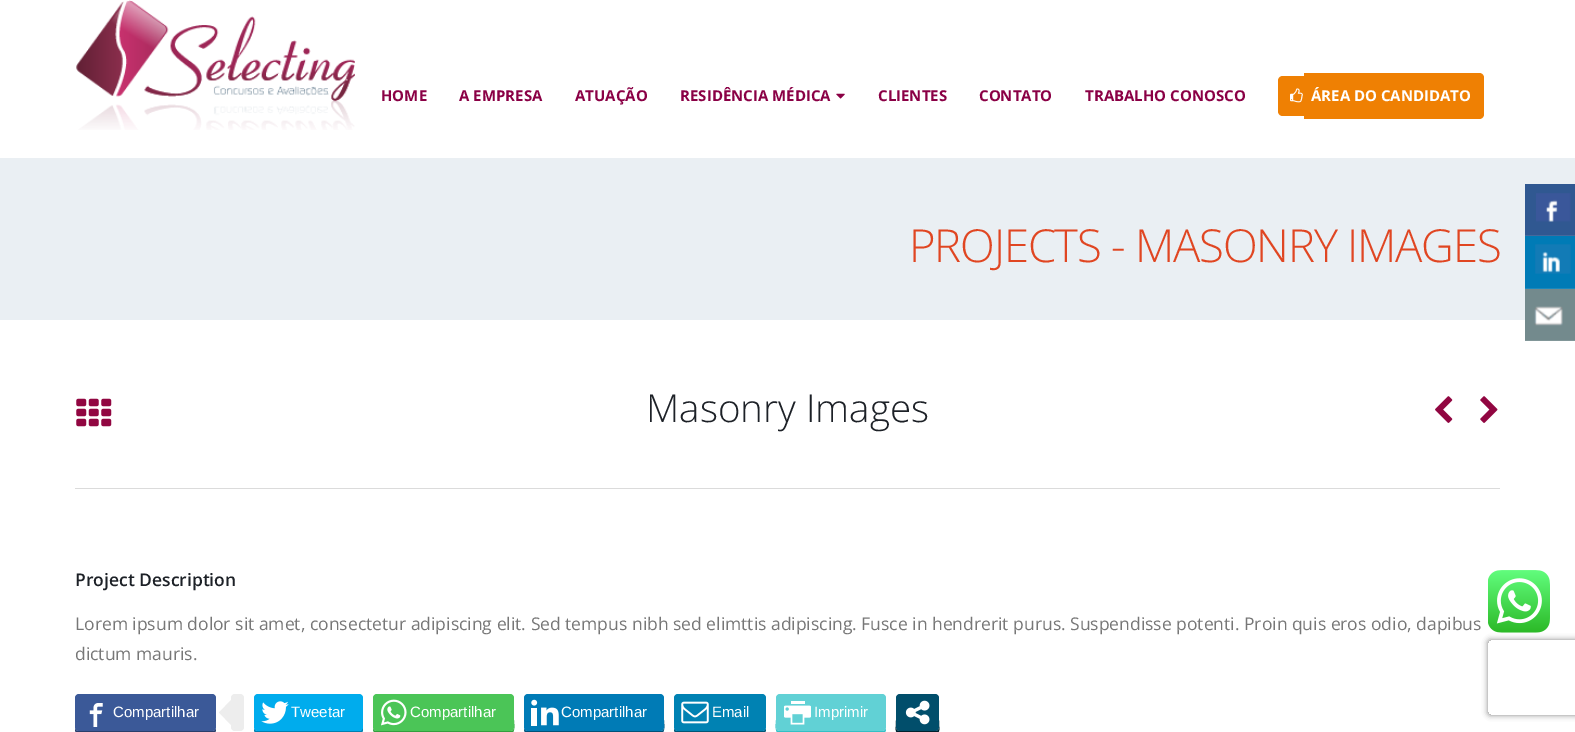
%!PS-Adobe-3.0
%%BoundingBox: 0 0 1575 732
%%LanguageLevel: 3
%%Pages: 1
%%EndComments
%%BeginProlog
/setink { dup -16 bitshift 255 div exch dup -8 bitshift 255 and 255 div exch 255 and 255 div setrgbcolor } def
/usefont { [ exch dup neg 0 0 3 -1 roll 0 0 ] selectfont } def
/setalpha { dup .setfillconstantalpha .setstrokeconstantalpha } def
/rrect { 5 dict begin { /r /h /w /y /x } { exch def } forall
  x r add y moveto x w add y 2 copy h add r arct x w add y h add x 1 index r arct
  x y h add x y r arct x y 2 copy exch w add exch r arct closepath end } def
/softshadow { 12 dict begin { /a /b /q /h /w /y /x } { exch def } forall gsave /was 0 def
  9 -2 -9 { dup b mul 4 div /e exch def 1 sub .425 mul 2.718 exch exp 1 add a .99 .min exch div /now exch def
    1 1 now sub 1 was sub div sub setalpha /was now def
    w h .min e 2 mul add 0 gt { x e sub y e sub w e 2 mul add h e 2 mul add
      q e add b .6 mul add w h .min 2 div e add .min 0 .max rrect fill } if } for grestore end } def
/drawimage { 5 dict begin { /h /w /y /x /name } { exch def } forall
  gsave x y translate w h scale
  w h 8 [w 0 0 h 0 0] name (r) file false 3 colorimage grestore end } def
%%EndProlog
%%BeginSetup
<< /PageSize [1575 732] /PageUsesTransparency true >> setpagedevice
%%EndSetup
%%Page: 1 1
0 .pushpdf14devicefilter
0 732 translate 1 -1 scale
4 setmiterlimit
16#FFFFFF setink
0 0 1575 732 rectfill
(img1.raw) 76 0 279 130 drawimage
/OpenSans-Bold 15 usefont
16#8A0045 setink
[
    [(HOME) 381 101]
    [(A EMPRESA) 459 101]
    [(ATUAÇÃO) 575 101]
    [(RESIDÊNCIA MÉDICA) 680 101]
] { aload pop moveto show } forall
(img2.raw) 836 93 9 6 drawimage
[
    [(CLIENTES) 878 101]
    [(CONTATO) 979 101]
    [(TRABALHO CONOSCO) 1085 101]
] { aload pop moveto show } forall
16#EF8003 setink
1283 76 moveto 1304 76 lineto 1304 116 lineto 1283 116 lineto 1280 116 1278 114 1278 111 curveto 1278 81 lineto 1278 78 1280 76 1283 76 curveto closepath fill
1304 73 moveto 1479 73 lineto 1482 73 1484 75 1484 78 curveto 1484 114 lineto 1484 117 1482 119 1479 119 curveto 1304 119 lineto closepath fill
(img3.raw) 1290 88 13 15 drawimage
16#FFFFFF setink
1311 101 moveto (ÁREA DO CANDIDATO) show
16#EAEFF3 setink
0 158 1575 162 rectfill
/OpenSans-Light 45.5 usefont
16#E04622 setink
909 262 moveto -1.25 0 (PROJECTS - MASONRY IMAGES) ashow
(img4.raw) 76 398 36 29 drawimage
/OpenSans-Light 38.5 usefont
16#1D2127 setink
646 422 moveto (Masonry Images) show
(img5.raw) 1435 396 18 27 drawimage
(img6.raw) 1480 396 18 27 drawimage
16#DBDBDB setink
75 488 1425 1 rectfill
/OpenSans-SemiBold 17.5 usefont
16#1D2127 setink
75 586 moveto (Project Description) show
/OpenSans-Regular 17.5 usefont
16#777777 setink
75 630 moveto (Lorem ipsum dolor sit amet, consectetur adipiscing elit. Sed tempus nibh sed elimttis adipiscing. Fusce in hendrerit purus. Suspendisse potenti. Proin quis eros odio, dapibus) show
75 660 moveto (dictum mauris.) show
16#2A3F6C setink
75 728 moveto 75 730 lineto 75 732 77 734 79 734 curveto 212 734 lineto 214 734 216 732 216 730 curveto 216 729 lineto 215 730 214 731 212 731 curveto 79 731 lineto 77 731 75 730 75 728 curveto closepath fill
16#3B5998 setink
75 694 141 37 4 rrect fill
(img7.raw) 89 703 14 24 drawimage
/LiberationSans-Regular 15 usefont
16#FFFFFF setink
113 717 moveto (Compartilhar) show
16#EDEDED setink
231 694 13 37 4 rrect fill
231 700 moveto 231 725 lineto 219 712.5 lineto closepath fill
16#0080B0 setink
254 729 moveto 254 730 lineto 254 732 256 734 258 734 curveto 359 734 lineto 361 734 363 732 363 730 curveto 363 700 lineto 362 698 lineto 362 728 lineto 362 730 361 731 359 731 curveto 258 731 lineto 256 731 255 730 254 729 curveto closepath fill
16#00ACED setink
254 694 109 37 4 rrect fill
(img8.raw) 261 701 28 23 drawimage
16#FFFFFF setink
291 717 moveto (Tweetar) show
16#339F3E setink
373 729 moveto 373 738 390 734 399 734 curveto 510 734 lineto 516 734 514 723 514 720 curveto 514 699 lineto 514 728 lineto 514 730 512 731 510 731 curveto 376 731 lineto 375 731 374 730 373 729 curveto closepath fill
16#4BC557 setink
373 694 141 37 4 rrect fill
(img9.raw) 381 699 26 27 drawimage
16#FFFFFF setink
410 717 moveto (Compartilhar) show
16#005279 setink
524 729 moveto 524 731 525 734 528 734 curveto 660 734 lineto 666 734 664 723 664 720 curveto 664 699 lineto 664 728 lineto 664 730 662 731 660 731 curveto 528 731 lineto 526 731 525 730 524 729 curveto closepath fill
16#007BB6 setink
524 694 140 37 4 rrect fill
(img10.raw) 531 699 28 27 drawimage
16#FFFFFF setink
561 717 moveto (Compartilhar) show
16#005676 setink
674 729 moveto 674 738 687 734 692 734 curveto 748 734 lineto 753 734 766 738 766 729 curveto 765 730 764 731 762 731 curveto 678 731 lineto 676 731 675 730 674 729 curveto closepath fill
16#0082B3 setink
674 694 92 37 4 rrect fill
(img11.raw) 681 701 28 23 drawimage
16#FFFFFF setink
712 717 moveto (Email) show
16#34C0C5 setink
776 699 moveto 776 720 lineto 776 723 774 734 780 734 curveto 865 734 lineto 869 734 886 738 886 729 curveto 885 730 884 731 882 731 curveto 780 731 lineto 778 731 776 730 776 728 curveto closepath fill
16#61D1D5 setink
776 694 110 37 4 rrect fill
(img12.raw) 784 701 27 24 drawimage
16#FFFFFF setink
814 717 moveto (Imprimir) show
16#00222E setink
896 699 moveto 896 720 lineto 896 732 893 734 906 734 curveto 929 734 lineto 942 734 939 732 939 720 curveto 939 699 lineto 939 728 lineto 939 730 937 731 935 731 curveto 900 731 lineto 898 731 896 730 896 728 curveto closepath fill
16#014E6B setink
896 694 43 37 4 rrect fill
(img13.raw) 905 700 25 25 drawimage
16#305891 setink
1525 184 50 51 rectfill
16#45699C setink
1525 235 50 1 rectfill
(img14.raw) 1536 193 35 29 drawimage
16#007BB6 setink
1525 236 50 52 rectfill
16#1A88BD setink
1525 288 50 1 rectfill
(img15.raw) 1535 244 36 30 drawimage
16#738A8D setink
1525 289 50 51 rectfill
16#819698 setink
1525 340 50 1 rectfill
(img16.raw) 1534 306 29 20 drawimage
gsave
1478 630 moveto 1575 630 lineto 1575 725 lineto 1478 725 lineto closepath 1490.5 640 moveto 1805.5 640 lineto 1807 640 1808 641 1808 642.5 curveto 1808 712.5 lineto 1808 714 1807 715 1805.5 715 curveto 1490.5 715 lineto 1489 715 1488 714 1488 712.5 curveto 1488 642.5 lineto 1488 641 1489 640 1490.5 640 curveto closepath eoclip newpath
16#808080 setink
1488 640 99 75 2.5 3 1 softshadow
grestore
(img17.raw) 1488 570 62 63 drawimage
.poppdf14devicefilter showpage
%%EOF
